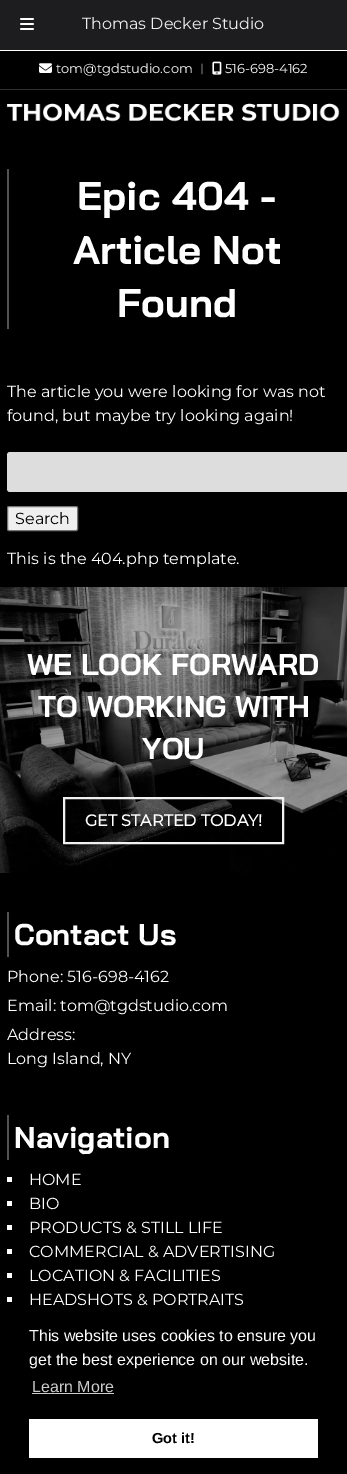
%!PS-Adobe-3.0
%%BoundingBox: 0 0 347 1474
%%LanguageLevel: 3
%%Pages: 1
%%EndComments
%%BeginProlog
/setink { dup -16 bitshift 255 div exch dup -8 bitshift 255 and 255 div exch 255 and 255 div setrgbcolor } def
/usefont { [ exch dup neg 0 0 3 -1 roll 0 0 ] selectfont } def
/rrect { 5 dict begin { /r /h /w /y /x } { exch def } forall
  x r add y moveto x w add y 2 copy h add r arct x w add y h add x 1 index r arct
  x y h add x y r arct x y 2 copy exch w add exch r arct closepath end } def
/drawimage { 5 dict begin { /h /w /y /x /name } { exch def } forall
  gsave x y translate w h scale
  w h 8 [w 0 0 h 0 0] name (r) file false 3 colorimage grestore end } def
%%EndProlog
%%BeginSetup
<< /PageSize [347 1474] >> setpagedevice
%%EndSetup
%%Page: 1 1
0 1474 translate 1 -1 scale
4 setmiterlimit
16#FFFFFF setink
0 0 347 1474 rectfill
16#1D1D20 setink
0 0 347 50 rectfill
(img1.raw) 20 18 14 12 drawimage
/Montserrat-Thin 16 usefont
16#EEEEEE setink
82 29 moveto (Thomas Decker Studio) show
16#000000 setink
0 51 347 38 rectfill
16#2E2E2E setink
0 89 347 1 rectfill
(img2.raw) 39 63 13 10 drawimage
/Montserrat-Thin 13 usefont
16#FFFFFF setink
56 73 moveto (tom@tgdstudio.com) show
/WenQuanYiZenHei-Medium 13 usefont
196 73 moveto (︱) show
(img3.raw) 212 61 10 14 drawimage
/Montserrat-Thin 13 usefont
225 73 moveto (516-698-4162) show
16#000000 setink
0 90 347 497 rectfill
(img4.raw) 7 103 333 19 drawimage
16#525252 setink
7 169 2 160 rectfill
/BaiJamjuree-Bold 40 usefont
16#FFFFFF setink
[
    [(Epic 404 -) 77 210]
    [(Article Not) 73 264]
    [(Found) 117 317]
] { aload pop moveto show } forall
/Montserrat-Thin 16 usefont
7 397 moveto (The article you were looking for was not) show
7 421 moveto (found, but maybe try looking again!) show
16#DDDDDD setink
7 452 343 40 3 rrect fill
16#EFEFEF setink
7.5 506.5 70 24 1.5 rrect gsave fill grestore
16#767676 setink
stroke
16#000000 setink
15 524 moveto (Search) show
16#FFFFFF setink
7 564 moveto (This is the 404.php template.) show
(img5.raw) 0 587 347 286 drawimage
/BaiJamjuree-Bold 30 usefont
[
    [(WE LOOK FORWARD) 27 675]
    [(TO WORKING WITH) 38 717]
    [(YOU) 142 759]
] { aload pop moveto show } forall
16#F1F1F1 setink
2 setlinewidth
64 798 219 45 rectstroke
/Montserrat-Bold 16 usefont
16#FFFFFF setink
85 826 moveto (GET STARTED TODAY!) show
16#000000 setink
0 873 347 601 rectfill
16#525252 setink
7 912 2 45 rectfill
/BaiJamjuree-Bold 30 usefont
16#FFFFFF setink
14 945 moveto (Contact Us) show
/Montserrat-Thin 16 usefont
[
    [(Phone: 516-698-4162) 7 982]
    [(Email: tom@tgdstudio.com) 7 1011]
    [(Address:) 7 1040]
    [(Long Island, NY) 7 1064]
] { aload pop moveto show } forall
16#525252 setink
7 1115 2 45 rectfill
/BaiJamjuree-Bold 30 usefont
16#FFFFFF setink
14 1148 moveto (Navigation) show
7 1177 5 5 rectfill
/Montserrat-Thin 16 usefont
29 1185 moveto (HOME) show
7 1201 5 5 rectfill
29 1209 moveto (BIO) show
7 1225 5 5 rectfill
29 1233 moveto (PRODUCTS & STILL LIFE) show
7 1249 5 5 rectfill
29 1257 moveto (COMMERCIAL & ADVERTISING) show
7 1273 5 5 rectfill
29 1281 moveto (LOCATION & FACILITIES) show
7 1297 5 5 rectfill
29 1305 moveto (HEADSHOTS & PORTRAITS) show
/LiberationSans-Regular 16 usefont
29 1341 moveto (This website uses cookies to ensure you) show
29 1365 moveto (get the best experience on our website.) show
16#CCCCCC setink
32 1392 moveto (Learn More) show
32 1393 82 1 rectfill
16#FFFFFF setink
29 1419 289 39 rectfill
/LiberationSans-Bold 14.5 usefont
16#000000 setink
152 1443 moveto (Got it!) show
showpage
%%EOF
